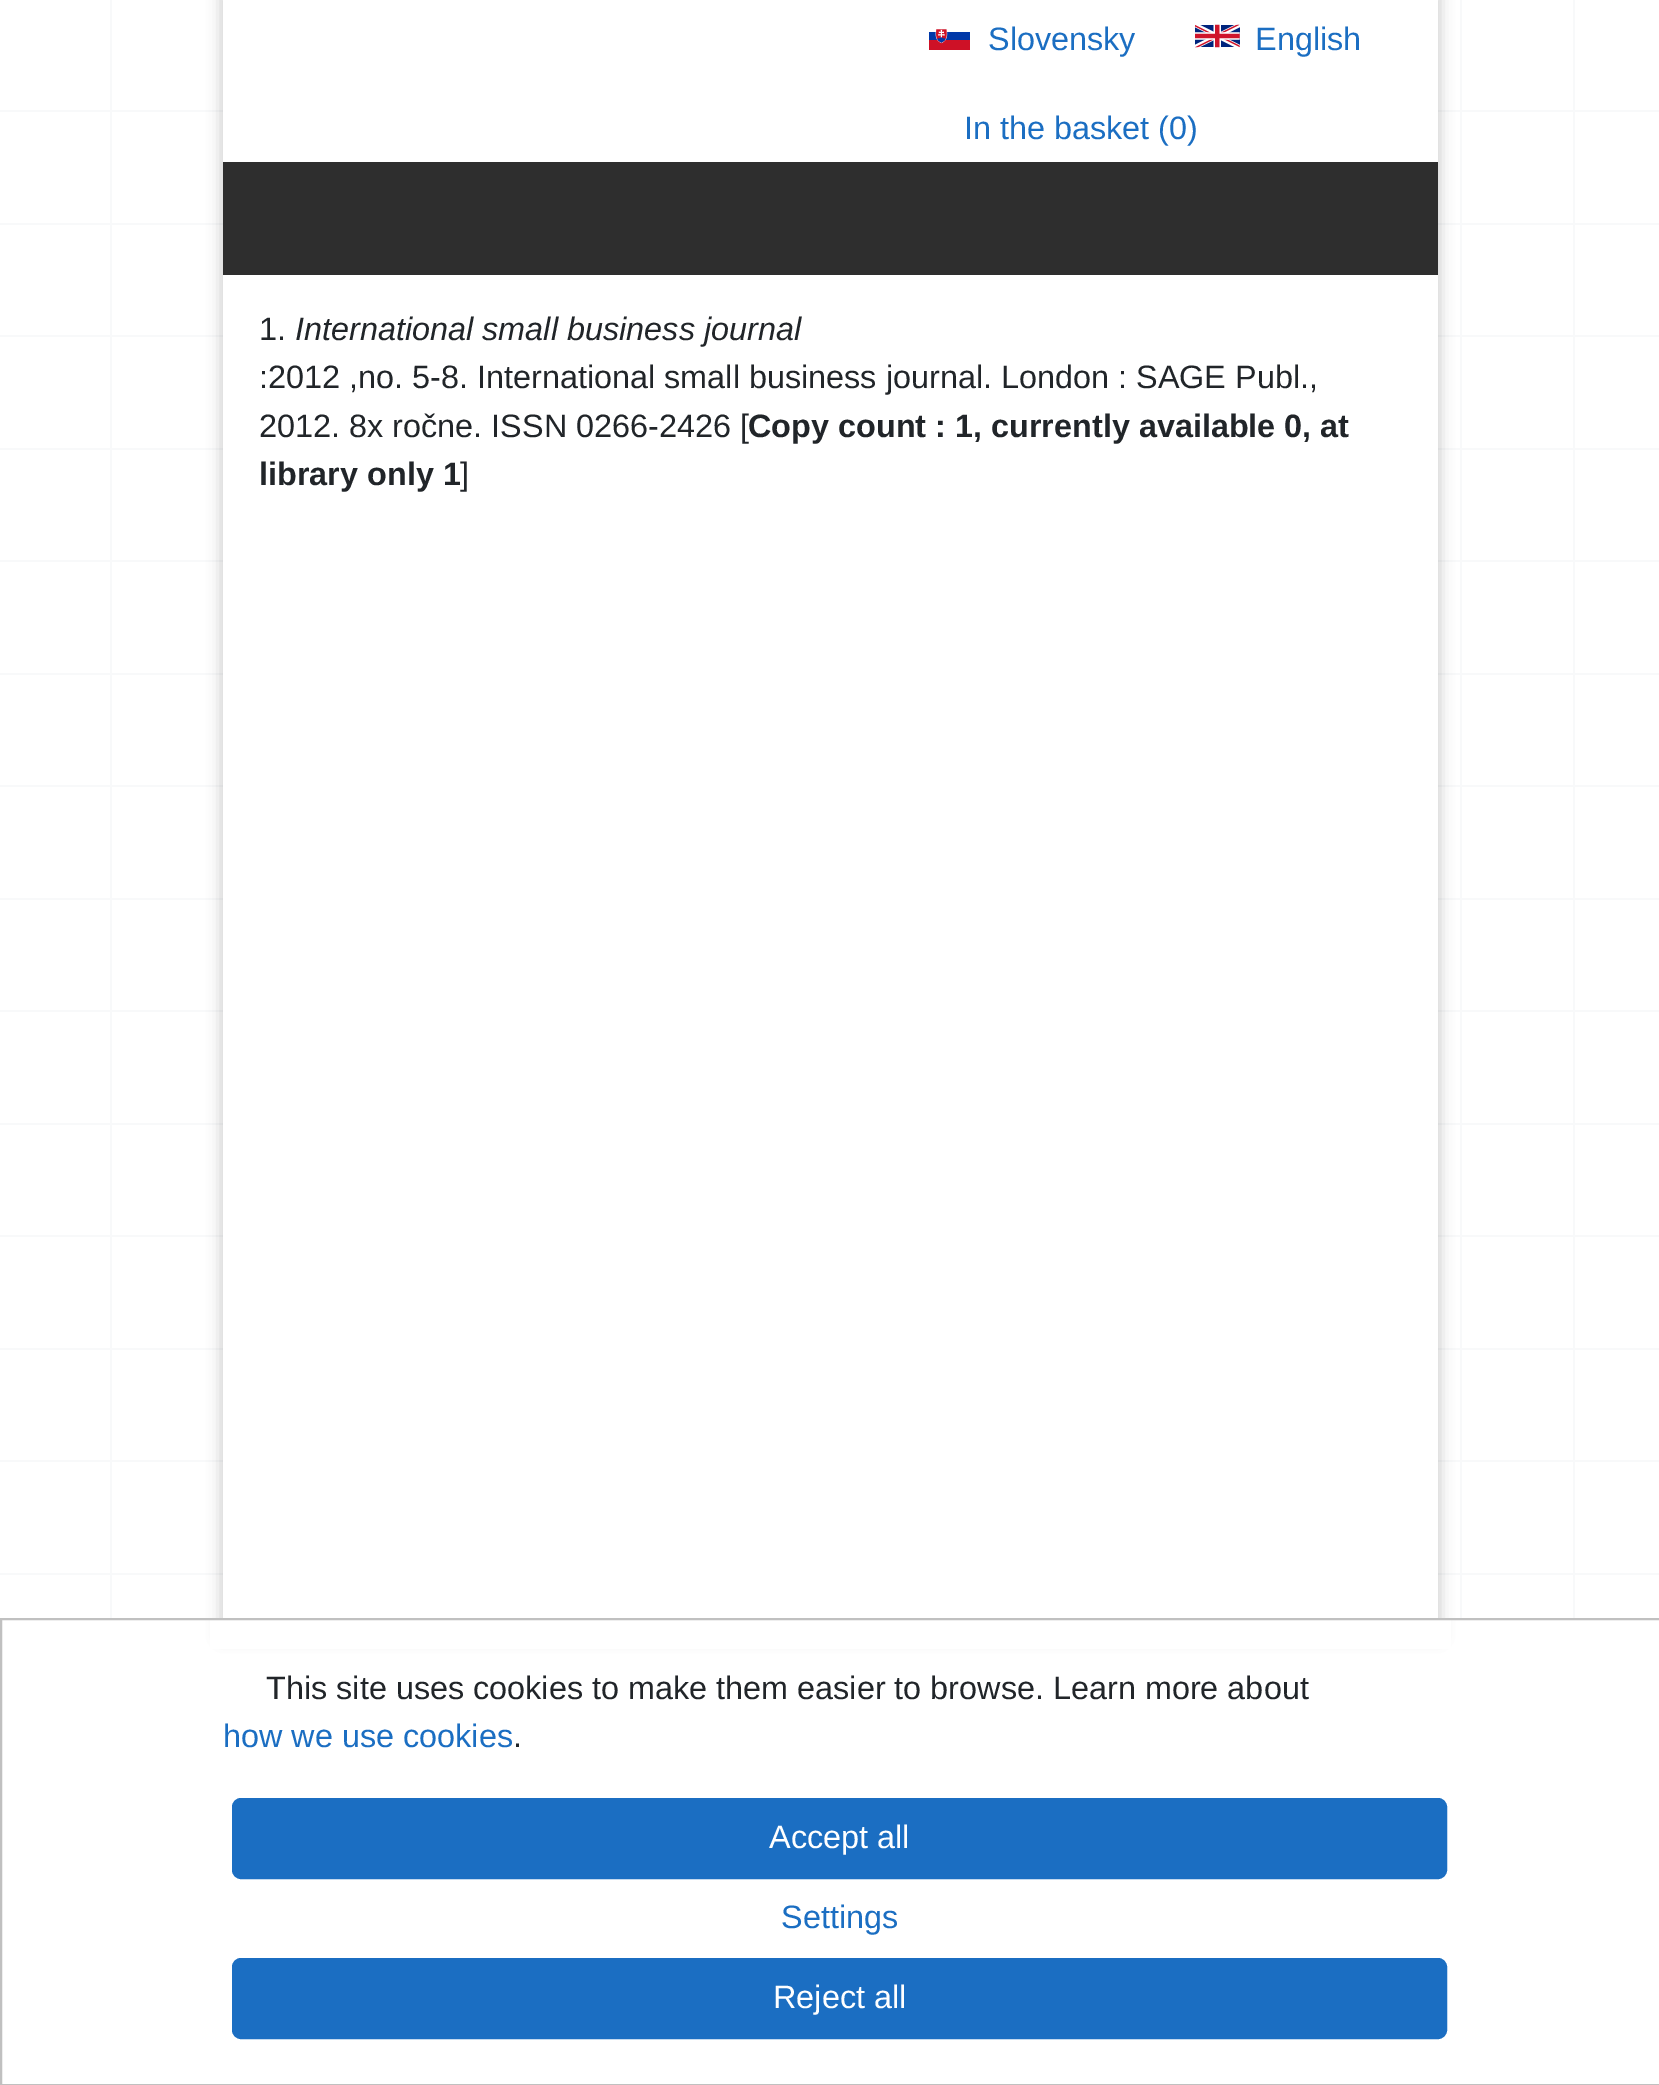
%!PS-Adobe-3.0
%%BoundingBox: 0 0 1659 2085
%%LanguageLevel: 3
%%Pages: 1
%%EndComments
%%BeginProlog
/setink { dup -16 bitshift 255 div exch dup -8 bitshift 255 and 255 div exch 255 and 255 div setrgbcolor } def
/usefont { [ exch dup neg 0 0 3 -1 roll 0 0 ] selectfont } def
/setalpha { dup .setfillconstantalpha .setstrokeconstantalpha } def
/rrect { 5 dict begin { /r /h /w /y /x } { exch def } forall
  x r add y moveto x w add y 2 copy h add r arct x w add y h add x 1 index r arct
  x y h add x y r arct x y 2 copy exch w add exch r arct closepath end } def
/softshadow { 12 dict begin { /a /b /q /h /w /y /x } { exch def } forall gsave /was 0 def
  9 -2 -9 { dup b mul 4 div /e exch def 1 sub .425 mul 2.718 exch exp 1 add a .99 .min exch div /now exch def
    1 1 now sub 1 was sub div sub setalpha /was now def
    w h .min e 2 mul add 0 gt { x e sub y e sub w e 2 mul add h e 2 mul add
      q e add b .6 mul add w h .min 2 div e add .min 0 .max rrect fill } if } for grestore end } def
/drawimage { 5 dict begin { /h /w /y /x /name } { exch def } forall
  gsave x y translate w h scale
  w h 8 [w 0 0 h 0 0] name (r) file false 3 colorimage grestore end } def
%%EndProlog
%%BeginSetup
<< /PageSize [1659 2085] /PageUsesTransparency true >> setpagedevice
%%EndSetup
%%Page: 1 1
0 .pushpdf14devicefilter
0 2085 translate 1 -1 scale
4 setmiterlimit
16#FFFFFF setink
0 0 1659 2085 rectfill
[
    [110 0 2 1618 16#F8F9FA]
    [1460 0 2 1618 16#F8F9FA]
    [1573 0 2 1618 16#F8F9FA]
    [0 110 1659 2 16#F8F9FA]
    [0 223 1659 2 16#F8F9FA]
    [0 335 1659 2 16#F8F9FA]
    [0 448 1659 2 16#F8F9FA]
    [0 560 1659 2 16#F8F9FA]
    [0 673 1659 2 16#F8F9FA]
    [0 785 1659 2 16#F8F9FA]
    [0 898 1659 2 16#F8F9FA]
    [0 1010 1659 2 16#F8F9FA]
    [0 1123 1659 2 16#F8F9FA]
    [0 1235 1659 2 16#F8F9FA]
    [0 1348 1659 2 16#F8F9FA]
    [0 1460 1659 2 16#F8F9FA]
    [0 1573 1659 2 16#F8F9FA]
] { aload pop setink rectfill } forall
16#000000 setink
221 -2 1219 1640 0 7 0.2 softshadow
16#FFFFFF setink
223 0 1215 1618 rectfill
(img1.raw) 929 29 41 21 drawimage
/LiberationSans-Regular 32.4 usefont
16#1B6EC2 setink
988 50 moveto (Slovensky) show
(img2.raw) 1195 24 45 24 drawimage
1255 50 moveto (English) show
964 139 moveto (In the basket \(0\)) show
16#2E2E2E setink
223 162 1215 113 rectfill
16#212529 setink
259 340 moveto (1.) show
/LiberationSans-Italic 32.4 usefont
295 340 moveto (International small business journal) show
/LiberationSans-Regular 32.4 usefont
259 388 moveto (:2012 ,no. 5-8. International small business journal. London : SAGE Publ.,) show
259 437 moveto (2012. 8x ročne. ISSN 0266-2426 [) show
/LiberationSans-Bold 32.4 usefont
748 437 moveto (Copy count : 1, currently available 0, at) show
259 485 moveto (library only 1) show
/LiberationSans-Regular 32.4 usefont
460 485 moveto (]) show
16#FFFFFF setink
210 1620 1241 29 rectfill
16#C0C0C0 setink
2 setlinewidth
1 1619 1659 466 rectstroke
16#212529 setink
266 1699 moveto (This site uses cookies to make them easier to browse. Learn more about) show
16#1B6EC2 setink
223 1747 moveto (how we use cookies) show
16#212529 setink
513 1747 moveto (.) show
16#1B6EC2 setink
233 1799 1213 79 8 rrect gsave fill grestore
stroke
16#FFFFFF setink
769 1848 moveto (Accept all) show
16#1B6EC2 setink
781 1928 moveto (Settings) show
233 1959 1213 79 8 rrect gsave fill grestore
stroke
16#FFFFFF setink
773 2008 moveto (Reject all) show
.poppdf14devicefilter showpage
%%EOF
